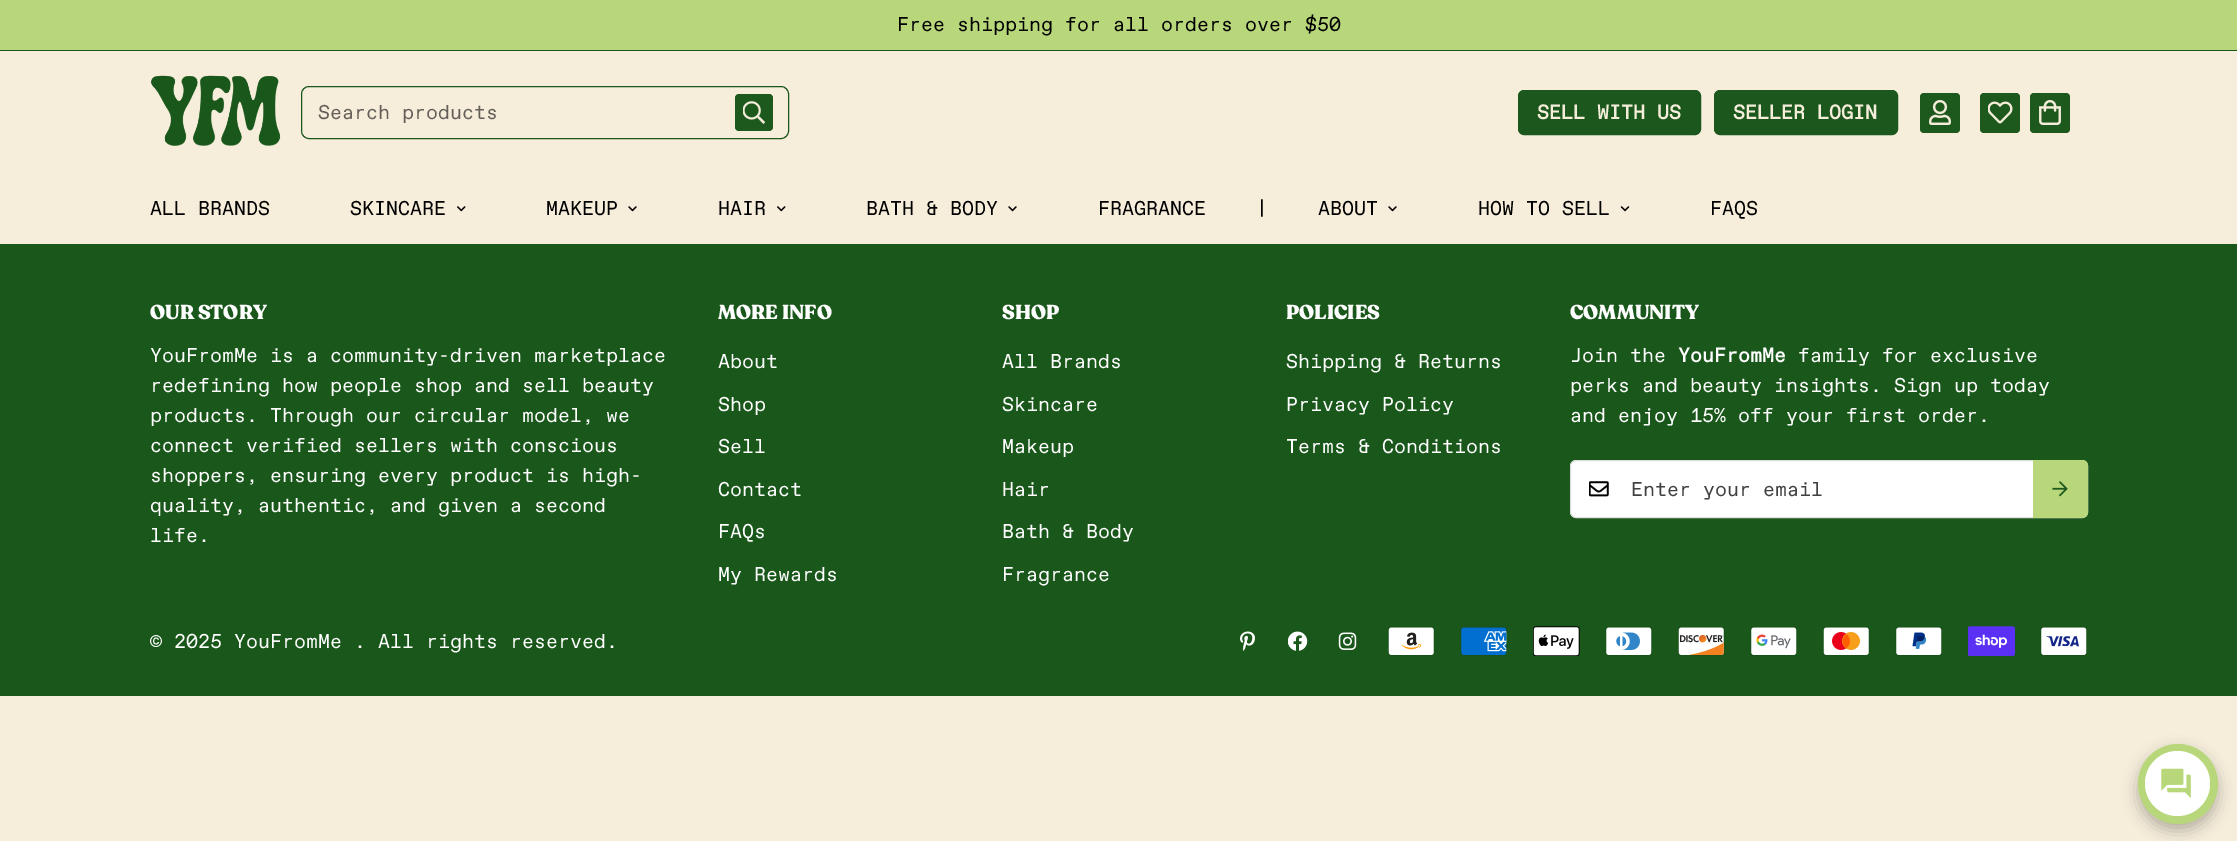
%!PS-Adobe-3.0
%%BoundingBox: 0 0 2237 841
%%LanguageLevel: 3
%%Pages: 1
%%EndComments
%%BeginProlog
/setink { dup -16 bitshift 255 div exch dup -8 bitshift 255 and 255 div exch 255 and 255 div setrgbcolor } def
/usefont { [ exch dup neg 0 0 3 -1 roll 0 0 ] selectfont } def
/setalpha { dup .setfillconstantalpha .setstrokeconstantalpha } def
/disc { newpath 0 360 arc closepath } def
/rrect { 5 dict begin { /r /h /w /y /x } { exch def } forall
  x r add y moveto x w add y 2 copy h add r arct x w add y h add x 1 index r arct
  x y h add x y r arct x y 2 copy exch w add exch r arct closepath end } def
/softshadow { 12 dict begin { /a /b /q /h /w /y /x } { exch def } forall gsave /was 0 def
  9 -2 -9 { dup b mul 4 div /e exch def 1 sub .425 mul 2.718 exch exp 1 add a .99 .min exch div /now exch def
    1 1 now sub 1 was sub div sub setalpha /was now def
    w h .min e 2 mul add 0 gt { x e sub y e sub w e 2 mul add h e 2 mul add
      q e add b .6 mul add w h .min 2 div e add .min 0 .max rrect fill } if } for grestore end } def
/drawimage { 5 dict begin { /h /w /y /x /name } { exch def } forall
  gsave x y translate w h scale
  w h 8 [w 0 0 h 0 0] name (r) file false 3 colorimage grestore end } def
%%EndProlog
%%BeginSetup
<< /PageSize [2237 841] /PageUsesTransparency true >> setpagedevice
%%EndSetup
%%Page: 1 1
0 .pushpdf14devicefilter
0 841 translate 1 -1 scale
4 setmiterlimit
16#F6EEDB setink
0 0 2237 841 rectfill
16#B8D77B setink
0 0 2237 50 rectfill
16#1A571B setink
0 50 2237 1 rectfill
/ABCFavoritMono-Regular 20 usefont
16#000000 setink
897 31 moveto (Free shipping for all orders over $50) show
(img1.raw) 150 75 131 71 drawimage
16#1A571B setink
301.5 86.5 487 52 7.5 rrect stroke
16#645F58 setink
318 119 moveto (Search products) show
16#1D581D setink
735 94 38 37 4 rrect fill
(img2.raw) 743 101 22 23 drawimage
16#1C581D setink
1518.5 90.5 182 44 5.5 rrect gsave fill grestore
stroke
/ABCFavoritMono-Bold 20 usefont
16#F6EEDB setink
1537 119 moveto (SELL WITH US) show
16#1C581D setink
1714.5 90.5 183 44 5.5 rrect gsave fill grestore
stroke
16#F6EEDB setink
1733 119 moveto (SELLER LOGIN) show
16#1D581D setink
1920 93 40 40 4 rrect fill
(img3.raw) 1929 100 22 25 drawimage
1980 93 40 40 4 rrect fill
(img4.raw) 1988 101 25 23 drawimage
2030 93 40 40 4 rrect fill
(img5.raw) 2039 100 22 25 drawimage
/ABCFavoritMono-Regular 20 usefont
16#000000 setink
150 215 moveto (ALL BRANDS) show
350 215 moveto (SKINCARE) show
(img6.raw) 457 206 9 6 drawimage
546 215 moveto (MAKEUP) show
(img7.raw) 628 206 9 6 drawimage
718 215 moveto (HAIR) show
(img6.raw) 777 206 9 6 drawimage
866 215 moveto (BATH & BODY) show
(img7.raw) 1008 206 9 6 drawimage
[
    [(FRAGRANCE) 1098 215]
    [(|) 1256 215]
    [(ABOUT) 1318 215]
] { aload pop moveto show } forall
(img7.raw) 1388 206 9 6 drawimage
1478 215 moveto (HOW TO SELL) show
(img8.raw) 1620 206 10 6 drawimage
1710 215 moveto (FAQS) show
16#1A571B setink
0 244 2237 452 rectfill
/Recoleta-Black 20 usefont
16#FFFFFF setink
150 319 moveto (OUR STORY) show
/ABCFavoritMono-Regular 20 usefont
[
    [(YouFromMe is a community-driven marketplace) 150 362]
    [(redefining how people shop and sell beauty) 150 392]
    [(products. Through our circular model, we) 150 422]
    [(connect verified sellers with conscious) 150 452]
    [(shoppers, ensuring every product is high-) 150 482]
    [(quality, authentic, and given a second) 150 512]
    [(life.) 150 542]
] { aload pop moveto show } forall
/Recoleta-Black 20 usefont
718 319 moveto (MORE INFO) show
/ABCFavoritMono-Regular 20 usefont
[
    [(About) 718 368]
    [(Shop) 718 411]
    [(Sell) 718 453]
    [(Contact) 718 496]
    [(FAQs) 718 538]
    [(My Rewards) 718 581]
] { aload pop moveto show } forall
/Recoleta-Black 20 usefont
1002 319 moveto (SHOP) show
/ABCFavoritMono-Regular 20 usefont
[
    [(All Brands) 1002 368]
    [(Skincare) 1002 411]
    [(Makeup) 1002 453]
    [(Hair) 1002 496]
    [(Bath & Body) 1002 538]
    [(Fragrance) 1002 581]
] { aload pop moveto show } forall
/Recoleta-Black 20 usefont
1286 319 moveto (POLICIES) show
/ABCFavoritMono-Regular 20 usefont
[
    [(Shipping & Returns) 1286 368]
    [(Privacy Policy) 1286 411]
    [(Terms & Conditions) 1286 453]
] { aload pop moveto show } forall
/Recoleta-Black 20 usefont
1570 319 moveto (COMMUNITY) show
/ABCFavoritMono-Regular 20 usefont
1570 362 moveto (Join the) show
/ABCFavoritMono-Bold 20 usefont
1678 362 moveto (YouFromMe) show
/ABCFavoritMono-Regular 20 usefont
[
    [(family for exclusive) 1798 362]
    [(perks and beauty insights. Sign up today) 1570 392]
    [(and enjoy 15% off your first order.) 1570 422]
] { aload pop moveto show } forall
1570.5 460.5 517 57 5.5 rrect gsave fill grestore
16#DEDEDE setink
stroke
(img9.raw) 1589 481 20 16 drawimage
16#404040 setink
1631 496 moveto (Enter your email) show
16#B8D77B setink
2033 460 moveto 2082 460 lineto 2085.5 460 2088 462.5 2088 466 curveto 2088 512 lineto 2088 515.5 2085.5 518 2082 518 curveto 2033 518 lineto closepath fill
(img10.raw) 2052 481 16 16 drawimage
16#FFFFFF setink
150 648 moveto (© 2025 YouFromMe . All rights reserved.) show
(img11.raw) 1240 631 15 20 drawimage
(img12.raw) 1288 631 20 20 drawimage
(img13.raw) 1338 632 19 18 drawimage
(img14.raw) 1388 626 47 30 drawimage
(img15.raw) 1460 626 47 30 drawimage
(img16.raw) 1533 626 47 30 drawimage
(img17.raw) 1605 626 47 30 drawimage
(img18.raw) 1678 626 47 30 drawimage
(img19.raw) 1750 626 47 30 drawimage
(img20.raw) 1823 626 47 30 drawimage
(img21.raw) 1895 626 47 30 drawimage
(img22.raw) 1968 626 47 30 drawimage
(img23.raw) 2040 626 47 30 drawimage
16#000000 setink
2138 751 80 80 40 7.5 0.25 softshadow
16#B8D77B setink
2178 784 40 disc fill
16#FFFFFF setink
2177.5 783.5 32.5 disc fill
(img24.raw) 2161 768 30 30 drawimage
.poppdf14devicefilter showpage
%%EOF
